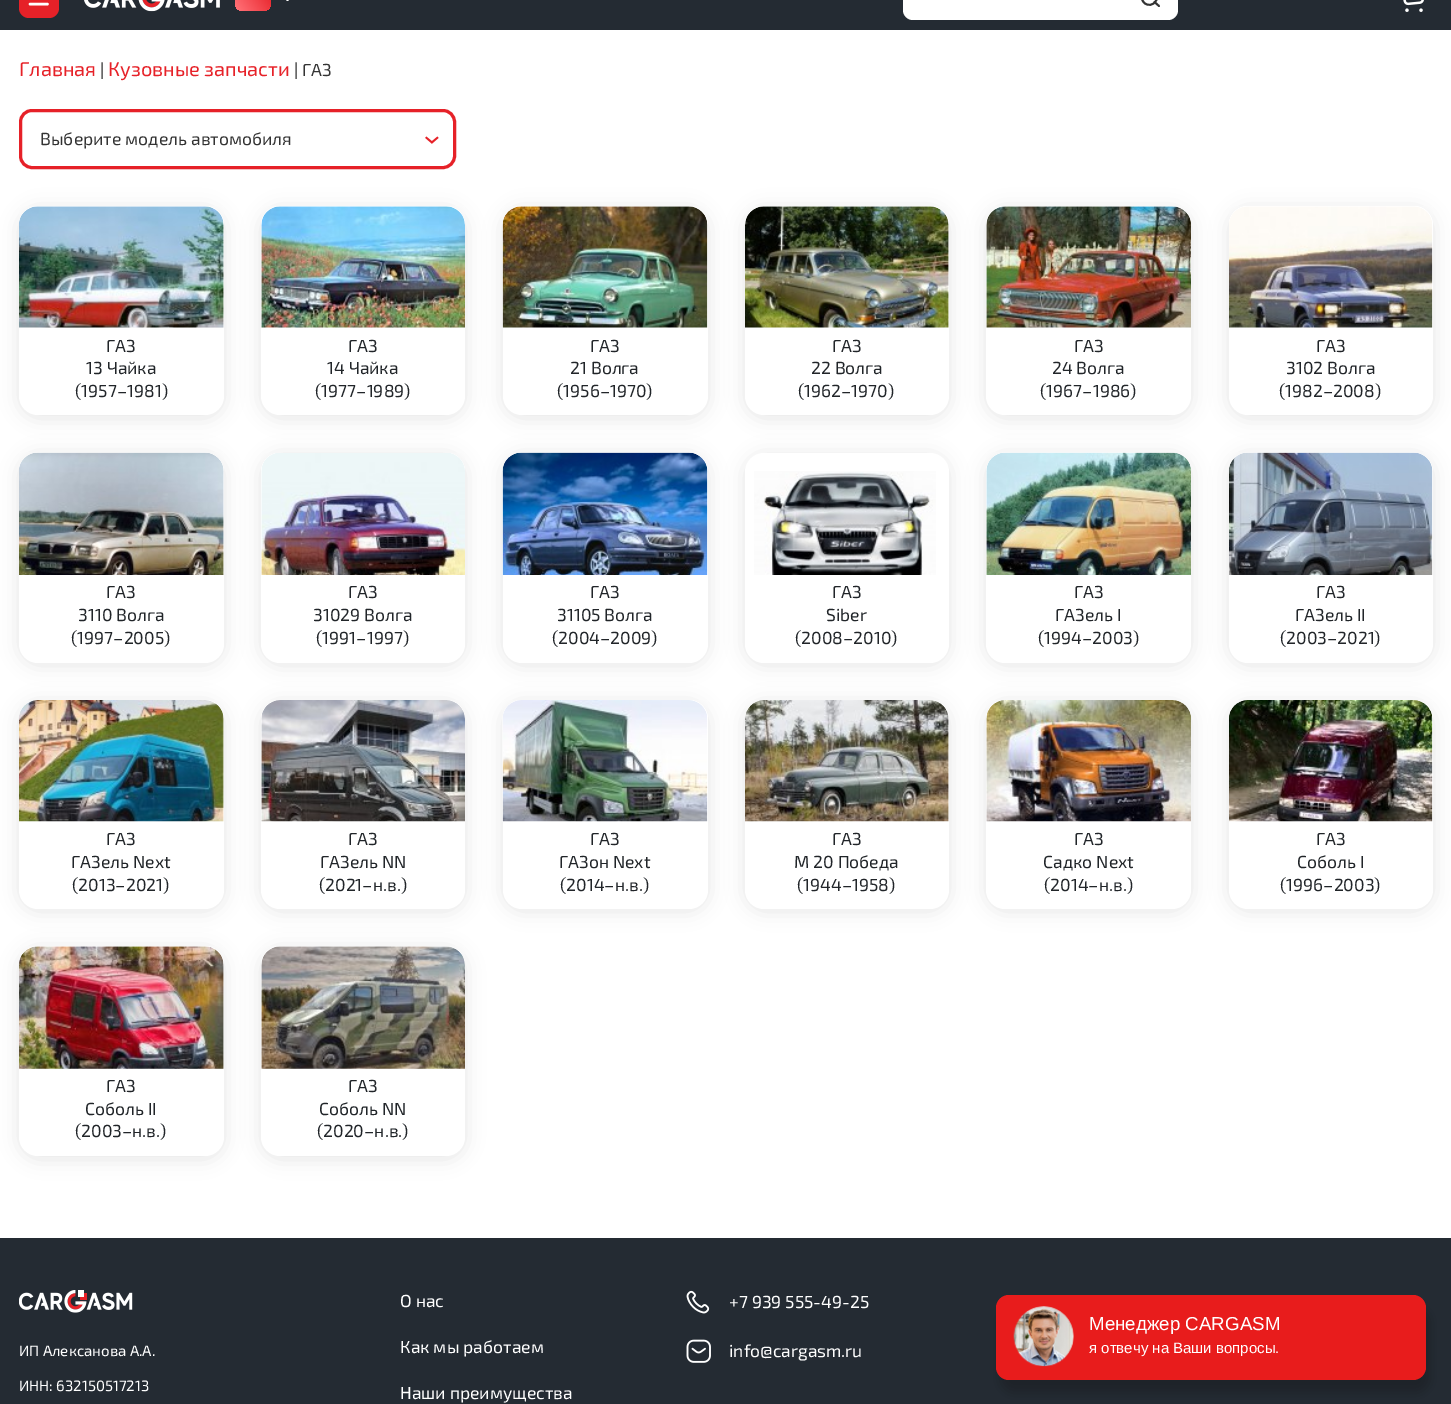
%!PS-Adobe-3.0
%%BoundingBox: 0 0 1451 1404
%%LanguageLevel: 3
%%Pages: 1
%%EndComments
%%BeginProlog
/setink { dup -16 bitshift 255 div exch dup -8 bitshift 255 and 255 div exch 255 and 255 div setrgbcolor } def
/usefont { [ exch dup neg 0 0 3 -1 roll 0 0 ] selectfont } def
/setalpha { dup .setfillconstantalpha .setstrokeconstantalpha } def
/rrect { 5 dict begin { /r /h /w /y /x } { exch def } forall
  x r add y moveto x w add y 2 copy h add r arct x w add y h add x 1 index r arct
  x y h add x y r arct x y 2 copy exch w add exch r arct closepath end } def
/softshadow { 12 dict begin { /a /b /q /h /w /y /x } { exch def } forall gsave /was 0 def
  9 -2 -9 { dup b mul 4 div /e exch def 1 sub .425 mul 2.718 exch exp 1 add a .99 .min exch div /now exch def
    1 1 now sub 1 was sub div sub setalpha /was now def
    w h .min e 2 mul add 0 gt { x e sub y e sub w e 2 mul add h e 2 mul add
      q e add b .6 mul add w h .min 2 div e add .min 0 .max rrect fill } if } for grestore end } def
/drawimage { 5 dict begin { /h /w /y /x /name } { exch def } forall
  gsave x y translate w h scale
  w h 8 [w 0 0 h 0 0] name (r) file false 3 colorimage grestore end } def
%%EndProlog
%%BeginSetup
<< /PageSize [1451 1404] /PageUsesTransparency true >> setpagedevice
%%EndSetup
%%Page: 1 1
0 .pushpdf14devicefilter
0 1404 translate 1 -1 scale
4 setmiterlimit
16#FFFFFF setink
0 0 1451 1404 rectfill
16#242B33 setink
0 0 1451 30 rectfill
16#E62128 setink
19 -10 40 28 10 rrect fill
16#FFFFFF setink
2.5 setlinewidth
1 setlinecap
1 setlinejoin
30 4 moveto 47.5 4 lineto 30 -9 moveto 47.5 -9 lineto 30 -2.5 moveto 44 -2.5 lineto stroke
(img1.raw) 84 0 136 12 drawimage
gsave 235 -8 36 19 8 rrect clip newpath
<< /ShadingType 2 /ColorSpace /DeviceRGB /Coords [272 -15 234 10] /Extend [true true] /Function << /FunctionType 3 /Domain [0 1] /Functions [<< /FunctionType 2 /Domain [0 1] /C0 [0.902 0.129 0.157] /C1 [0.902 0.129 0.157] /N 1 >> << /FunctionType 2 /Domain [0 1] /C0 [0.902 0.129 0.157] /C1 [1 0.424 0.447] /N 1 >> << /FunctionType 2 /Domain [0 1] /C0 [1 0.424 0.447] /C1 [1 0.424 0.447] /N 1 >>] /Bounds [0.08 0.9] /Encode [0 1 0 1 0 1] >> >> shfill grestore
1.9 setlinewidth
282.5 -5 moveto 287.5 0 lineto 292.5 -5 lineto stroke
903 -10 275 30 10 rrect fill
16#333333 setink
1154.5 -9 moveto 1162 -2 1152 9.5 1144.5 3 curveto 1136.5 -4 1147 -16 1154.5 -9 curveto 1159 6 moveto 1154.5 2 lineto stroke
(img2.raw) 1403 0 21 12 drawimage
/Exo2-Regular 20 usefont
16#E62128 setink
19 76 moveto (Главная) show
/Exo2-Regular 17.5 usefont
16#333333 setink
100 76 moveto (|) show
/Exo2-Regular 20 usefont
16#E62128 setink
108 76 moveto (Кузовные запчасти) show
/Exo2-Regular 17.5 usefont
16#333333 setink
294 76 moveto (| ГАЗ) show
16#F0F0F0 setink
1 setlinewidth
0 setlinecap
0 setlinejoin
19.5 109.5 436 59 12.5 rrect stroke
16#FFFFFF setink
20.5 110.5 434 57 11.5 rrect gsave fill grestore
16#E62128 setink
3 setlinewidth
stroke
16#333333 setink
40 145 moveto (Выберите модель автомобиля) show
(img3.raw) 425 136 14 8 drawimage
16#000000 setink
19 209 205 209 19 9.5 0.1 softshadow
16#FFFFFF setink
19 206 205 209 19 rrect fill
(img4.raw) 19 206 205 122 drawimage
16#212529 setink
[
    [(ГАЗ) 106 352]
    [(13 Чайка) 86 374]
    [(\(1957–1981\)) 75 397]
] { aload pop moveto show } forall
16#000000 setink
261 209 204 209 19 9.5 0.1 softshadow
16#FFFFFF setink
261 206 204 209 19 rrect fill
(img5.raw) 261 206 204 122 drawimage
16#212529 setink
[
    [(ГАЗ) 348 352]
    [(14 Чайка) 327 374]
    [(\(1977–1989\)) 315 397]
] { aload pop moveto show } forall
16#000000 setink
503 209 205 209 19 9.5 0.1 softshadow
16#FFFFFF setink
503 206 205 209 19 rrect fill
(img6.raw) 502 206 206 122 drawimage
16#212529 setink
[
    [(ГАЗ) 590 352]
    [(21 Волга) 570 374]
    [(\(1956–1970\)) 557 397]
] { aload pop moveto show } forall
16#000000 setink
745 209 204 209 19 9.5 0.1 softshadow
16#FFFFFF setink
745 206 204 209 19 rrect fill
(img7.raw) 745 206 204 122 drawimage
16#212529 setink
[
    [(ГАЗ) 832 352]
    [(22 Волга) 811 374]
    [(\(1962–1970\)) 798 397]
] { aload pop moveto show } forall
16#000000 setink
986 209 205 209 19 9.5 0.1 softshadow
16#FFFFFF setink
986 206 205 209 19 rrect fill
(img8.raw) 986 206 205 122 drawimage
16#212529 setink
[
    [(ГАЗ) 1074 352]
    [(24 Волга) 1052 374]
    [(\(1967–1986\)) 1040 397]
] { aload pop moveto show } forall
16#000000 setink
1229 209 204 209 19 9.5 0.1 softshadow
16#FFFFFF setink
1229 206 204 209 19 rrect fill
(img9.raw) 1229 206 204 122 drawimage
16#212529 setink
[
    [(ГАЗ) 1316 352]
    [(3102 Волга) 1286 374]
    [(\(1982–2008\)) 1279 397]
] { aload pop moveto show } forall
16#000000 setink
19 455 205 210 19 9.5 0.1 softshadow
16#FFFFFF setink
19 453 205 210 19 rrect fill
(img10.raw) 19 452 205 123 drawimage
16#212529 setink
[
    [(ГАЗ) 106 598]
    [(3110 Волга) 78 621]
    [(\(1997–2005\)) 71 644]
] { aload pop moveto show } forall
16#000000 setink
261 455 204 210 19 9.5 0.1 softshadow
16#FFFFFF setink
261 453 204 210 19 rrect fill
(img11.raw) 261 453 204 122 drawimage
16#212529 setink
[
    [(ГАЗ) 348 598]
    [(31029 Волга) 313 621]
    [(\(1991–1997\)) 316 644]
] { aload pop moveto show } forall
16#000000 setink
503 455 205 210 19 9.5 0.1 softshadow
16#FFFFFF setink
503 453 205 210 19 rrect fill
(img12.raw) 502 452 206 123 drawimage
16#212529 setink
[
    [(ГАЗ) 590 598]
    [(31105 Волга) 557 621]
    [(\(2004–2009\)) 552 644]
] { aload pop moveto show } forall
16#000000 setink
745 455 204 210 19 9.5 0.1 softshadow
16#FFFFFF setink
745 453 204 210 19 rrect fill
(img13.raw) 754 471 182 104 drawimage
16#212529 setink
[
    [(ГАЗ) 832 598]
    [(Siber) 826 621]
    [(\(2008–2010\)) 795 644]
] { aload pop moveto show } forall
16#000000 setink
986 455 205 210 19 9.5 0.1 softshadow
16#FFFFFF setink
986 453 205 210 19 rrect fill
(img14.raw) 986 452 205 123 drawimage
16#212529 setink
[
    [(ГАЗ) 1074 598]
    [(ГАЗель I) 1055 621]
    [(\(1994–2003\)) 1038 644]
] { aload pop moveto show } forall
16#000000 setink
1229 455 204 210 19 9.5 0.1 softshadow
16#FFFFFF setink
1229 453 204 210 19 rrect fill
(img15.raw) 1229 452 204 123 drawimage
16#212529 setink
[
    [(ГАЗ) 1316 598]
    [(ГАЗель II) 1295 621]
    [(\(2003–2021\)) 1280 644]
] { aload pop moveto show } forall
16#000000 setink
19 703 205 208 19 9.5 0.1 softshadow
16#FFFFFF setink
19 700 205 209 19 rrect fill
(img16.raw) 19 700 205 122 drawimage
16#212529 setink
[
    [(ГАЗ) 106 845]
    [(ГАЗель Next) 71 868]
    [(\(2013–2021\)) 72 891]
] { aload pop moveto show } forall
16#000000 setink
261 703 204 208 19 9.5 0.1 softshadow
16#FFFFFF setink
261 700 204 209 19 rrect fill
(img17.raw) 261 700 204 122 drawimage
16#212529 setink
[
    [(ГАЗ) 348 845]
    [(ГАЗель NN) 320 868]
    [(\(2021–н.в.\)) 319 891]
] { aload pop moveto show } forall
16#000000 setink
503 703 205 208 19 9.5 0.1 softshadow
16#FFFFFF setink
503 700 205 209 19 rrect fill
(img18.raw) 502 700 206 122 drawimage
16#212529 setink
[
    [(ГАЗ) 590 845]
    [(ГАЗон Next) 559 868]
    [(\(2014–н.в.\)) 560 891]
] { aload pop moveto show } forall
16#000000 setink
745 703 204 208 19 9.5 0.1 softshadow
16#FFFFFF setink
745 700 204 209 19 rrect fill
(img19.raw) 745 700 204 122 drawimage
16#212529 setink
[
    [(ГАЗ) 832 845]
    [(М 20 Победа) 794 868]
    [(\(1944–1958\)) 797 891]
] { aload pop moveto show } forall
16#000000 setink
986 703 205 208 19 9.5 0.1 softshadow
16#FFFFFF setink
986 700 205 209 19 rrect fill
(img20.raw) 986 700 205 122 drawimage
16#212529 setink
[
    [(ГАЗ) 1074 845]
    [(Садко Next) 1043 868]
    [(\(2014–н.в.\)) 1044 891]
] { aload pop moveto show } forall
16#000000 setink
1229 703 204 208 19 9.5 0.1 softshadow
16#FFFFFF setink
1229 700 204 209 19 rrect fill
(img21.raw) 1229 700 204 122 drawimage
16#212529 setink
[
    [(ГАЗ) 1316 845]
    [(Соболь I) 1297 868]
    [(\(1996–2003\)) 1280 891]
] { aload pop moveto show } forall
16#000000 setink
19 949 205 210 19 9.5 0.1 softshadow
16#FFFFFF setink
19 946 205 210 19 rrect fill
(img22.raw) 19 946 205 123 drawimage
16#212529 setink
[
    [(ГАЗ) 106 1092]
    [(Соболь II) 85 1115]
    [(\(2003–н.в.\)) 75 1137]
] { aload pop moveto show } forall
16#000000 setink
261 949 204 210 19 9.5 0.1 softshadow
16#FFFFFF setink
261 946 204 210 19 rrect fill
(img23.raw) 261 946 204 123 drawimage
16#212529 setink
[
    [(ГАЗ) 348 1092]
    [(Соболь NN) 319 1115]
    [(\(2020–н.в.\)) 317 1137]
] { aload pop moveto show } forall
16#242B33 setink
0 1238 1451 166 rectfill
16#FFFFFF setink
[
    [(О нас) 400 1307]
    [(Как мы работаем) 400 1353]
    [(Наши преимущества) 400 1399]
] { aload pop moveto show } forall
(img24.raw) 686 1290 24 24 drawimage
729 1308 moveto (+7 939 555-49-25) show
(img25.raw) 686 1339 25 24 drawimage
729 1357 moveto (info@cargasm.ru) show
(img26.raw) 19 1290 114 23 drawimage
/Exo2-Regular 15 usefont
19 1356 moveto (ИП Алексанова А.А.) show
19 1391 moveto (ИНН: 632150517213) show
16#000000 setink
1000 1308 430 85 13 6 0.2 softshadow
16#E81C1C setink
996 1295 430 85 13 rrect fill
(img27.raw) 1013 1306 61 61 drawimage
/LiberationSans-Regular 18.75 usefont
16#FFFFFF setink
1089 1330 moveto (Менеджер CARGASM) show
/LiberationSans-Regular 15 usefont
1089 1353 moveto (я отвечу на Ваши вопросы.) show
.poppdf14devicefilter showpage
%%EOF
